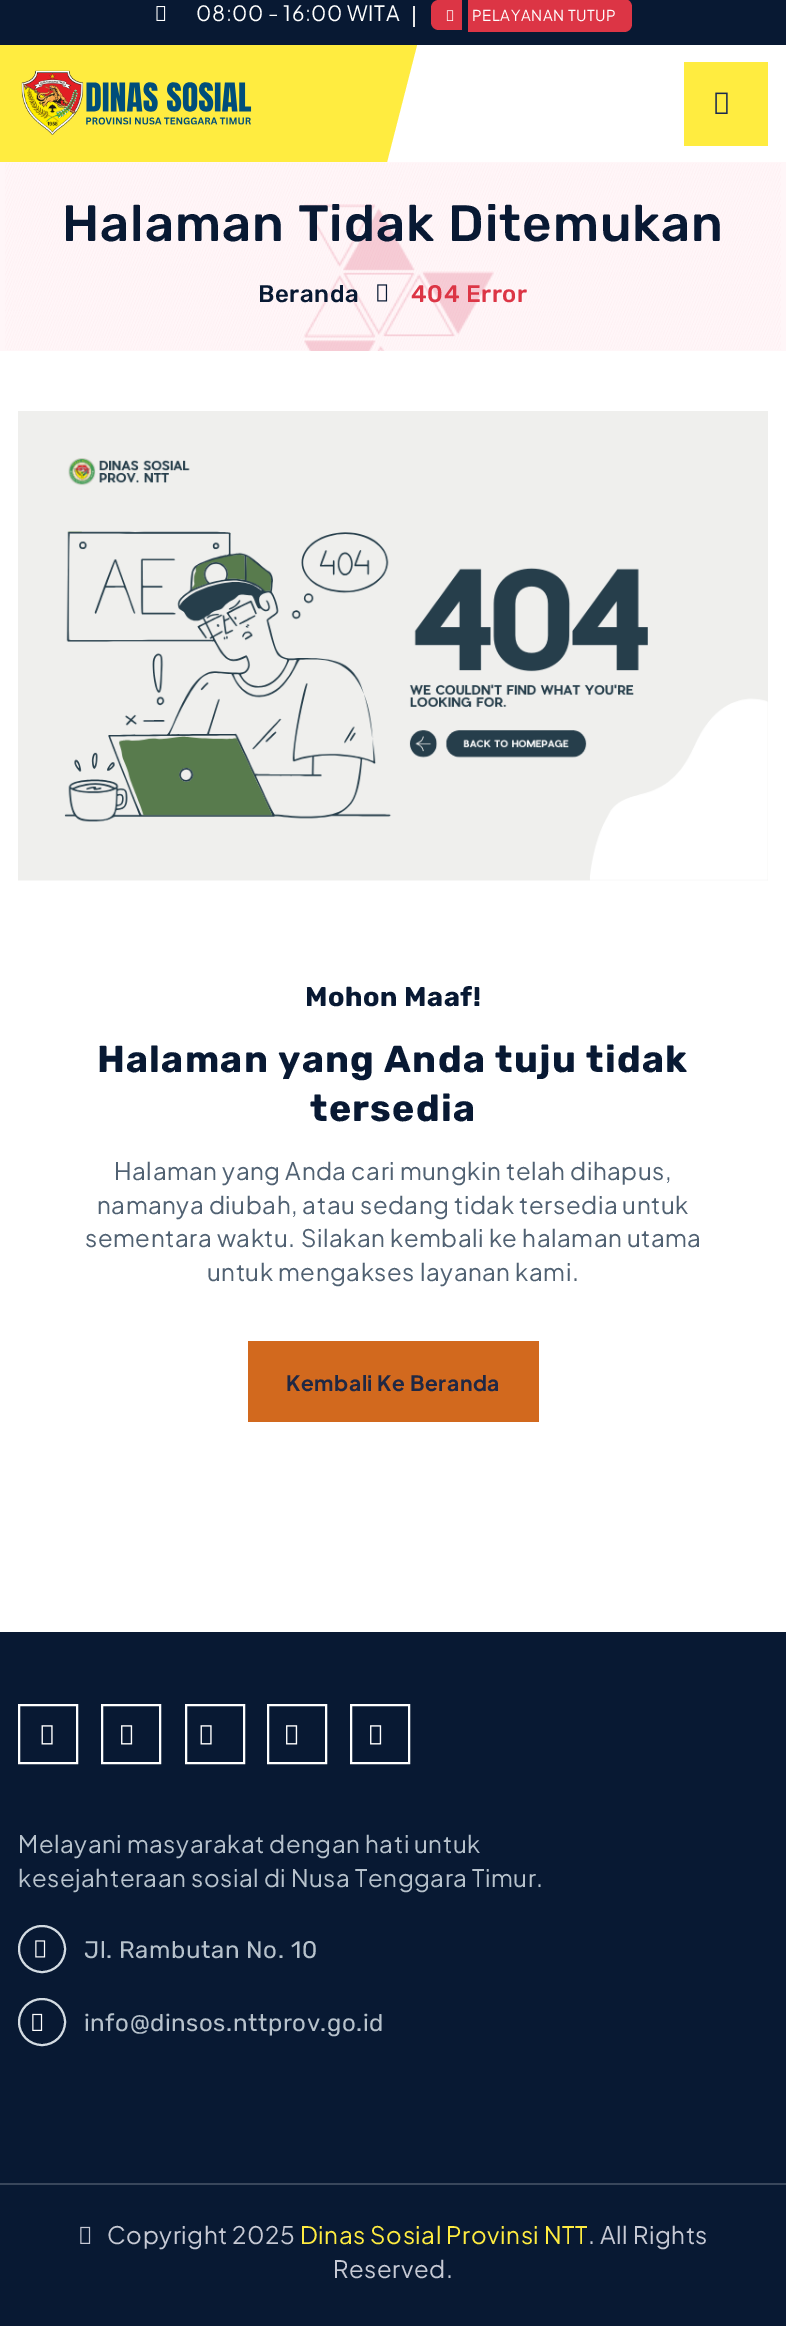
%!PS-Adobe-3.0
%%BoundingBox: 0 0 786 2326
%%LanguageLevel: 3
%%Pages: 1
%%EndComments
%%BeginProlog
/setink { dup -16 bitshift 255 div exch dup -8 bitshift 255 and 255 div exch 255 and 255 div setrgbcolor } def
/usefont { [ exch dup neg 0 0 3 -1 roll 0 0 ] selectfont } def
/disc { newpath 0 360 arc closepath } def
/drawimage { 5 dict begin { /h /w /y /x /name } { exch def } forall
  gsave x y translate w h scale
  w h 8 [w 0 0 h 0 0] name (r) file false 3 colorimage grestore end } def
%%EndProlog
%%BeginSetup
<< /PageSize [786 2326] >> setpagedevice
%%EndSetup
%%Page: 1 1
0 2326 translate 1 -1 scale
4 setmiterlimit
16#FFFFFF setink
0 0 786 2326 rectfill
16#081933 setink
0 0 786 45 rectfill
(img1.raw) 156 6 10 15 drawimage
/PlusJakartaSans-Regular 21 usefont
16#FFFFFF setink
196 21 moveto 0.55 0 (08:00 - 16:00 WITA) ashow
16#E7E7E7 setink
413 6 2 21 rectfill
16#DC3545 setink
439 0 moveto 462 0 lineto 462 30 lineto 439 30 lineto 434.5 30 431 26.5 431 22 curveto 431 8 lineto 431 3.5 434.5 0 439 0 curveto closepath fill
468 -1 moveto 624 -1 lineto 628.5 -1 632 2.5 632 7 curveto 632 24 lineto 632 28.5 628.5 32 624 32 curveto 468 32 lineto closepath fill
(img2.raw) 446 10 8 11 drawimage
/PlusJakartaSans-Regular 15 usefont
16#FFFFFF setink
472 21 moveto 0.55 0 (PELAYANAN TUTUP) ashow
16#FFEC40 setink
0 45 moveto 0 162 lineto 387 162 lineto 417 45 lineto closepath fill
(img3.raw) 21 70 231 65 drawimage
684 62 84 84 rectfill
(img4.raw) 715 92 13 22 drawimage
16#FFF6F8 setink
0 162 786 189 rectfill
(img5.raw) 5 163 776 187 drawimage
(img7.raw) 304 204 190 147 drawimage
/Rubik-Medium 51 usefont
16#081933 setink
62 241 moveto 1 0 (Halaman Tidak Ditemukan) ashow
/Rubik-Medium 24 usefont
258 302 moveto 0.55 0 (Beranda) ashow
(img6.raw) 377 284 11 18 drawimage
16#DC3545 setink
411 302 moveto 0.55 0 (404 Error) ashow
(img8.raw) 18 411 750 470 drawimage
/Rubik-Bold 27 usefont
16#081933 setink
305 1006 moveto 0.55 0 (Mohon Maaf!) ashow
/Rubik-Bold 37.5 usefont
97 1072 moveto 1.2 0 (Halaman yang Anda tuju tidak) ashow
310 1121 moveto 1.2 0 (tersedia) ashow
/PlusJakartaSans-Regular 24 usefont
16#506172 setink
114 1180 moveto 0.55 0 (Halaman yang Anda cari mungkin telah dihapus,) ashow
97 1214 moveto 0.55 0 (namanya diubah, atau sedang tidak tersedia untuk) ashow
85 1247 moveto 0.55 0 (sementara waktu. Silakan kembali ke halaman utama) ashow
207 1281 moveto 0.55 0 (untuk mengakses layanan kami.) ashow
16#D2691E setink
248 1341 291 81 rectfill
/PlusJakartaSans-Bold 21 usefont
16#202844 setink
286 1391 moveto 0.55 0 (Kembali Ke Beranda) ashow
16#081933 setink
0 1632 786 694 rectfill
16#FFFFFF setink
2 setlinewidth
19 1705 58 58 rectstroke
(img9.raw) 41 1725 12 20 drawimage
102 1705 58 58 rectstroke
(img10.raw) 121 1725 12 20 drawimage
186 1705 58 58 rectstroke
(img9.raw) 200 1725 12 20 drawimage
268 1705 58 58 rectstroke
(img10.raw) 286 1725 12 20 drawimage
351 1705 58 58 rectstroke
(img10.raw) 370 1725 12 20 drawimage
/PlusJakartaSans-Regular 24 usefont
16#B7C2CC setink
18 1853 moveto 0.55 0 (Melayani masyarakat dengan hati untuk) ashow
18 1887 moveto 0.55 0 (kesejahteraan sosial di Nusa Tenggara Timur.) ashow
16#D3DBE2 setink
42 1949 23 disc stroke
(img11.raw) 35 1940 11 18 drawimage
/Rubik-Regular 24 usefont
16#B7C2CC setink
84 1958 moveto 0.55 0 (Jl. Rambutan No. 10) ashow
16#D3DBE2 setink
42 2022 23 disc stroke
(img12.raw) 32 2013 11 18 drawimage
16#B7C2CC setink
84 2031 moveto 0.55 0 (info@dinsos.nttprov.go.id) ashow
16#39475C setink
0 2183 786 2 rectfill
(img13.raw) 80 2226 11 18 drawimage
/PlusJakartaSans-Regular 24 usefont
16#C6C9D4 setink
107 2244 moveto 0.55 0 (Copyright 2025) ashow
16#FFEC40 setink
300 2244 moveto 0.55 0 (Dinas Sosial Provinsi NTT) ashow
16#C6C9D4 setink
588 2244 moveto 0.55 0 (. All Rights) ashow
333 2278 moveto 0.55 0 (Reserved.) ashow
showpage
%%EOF
